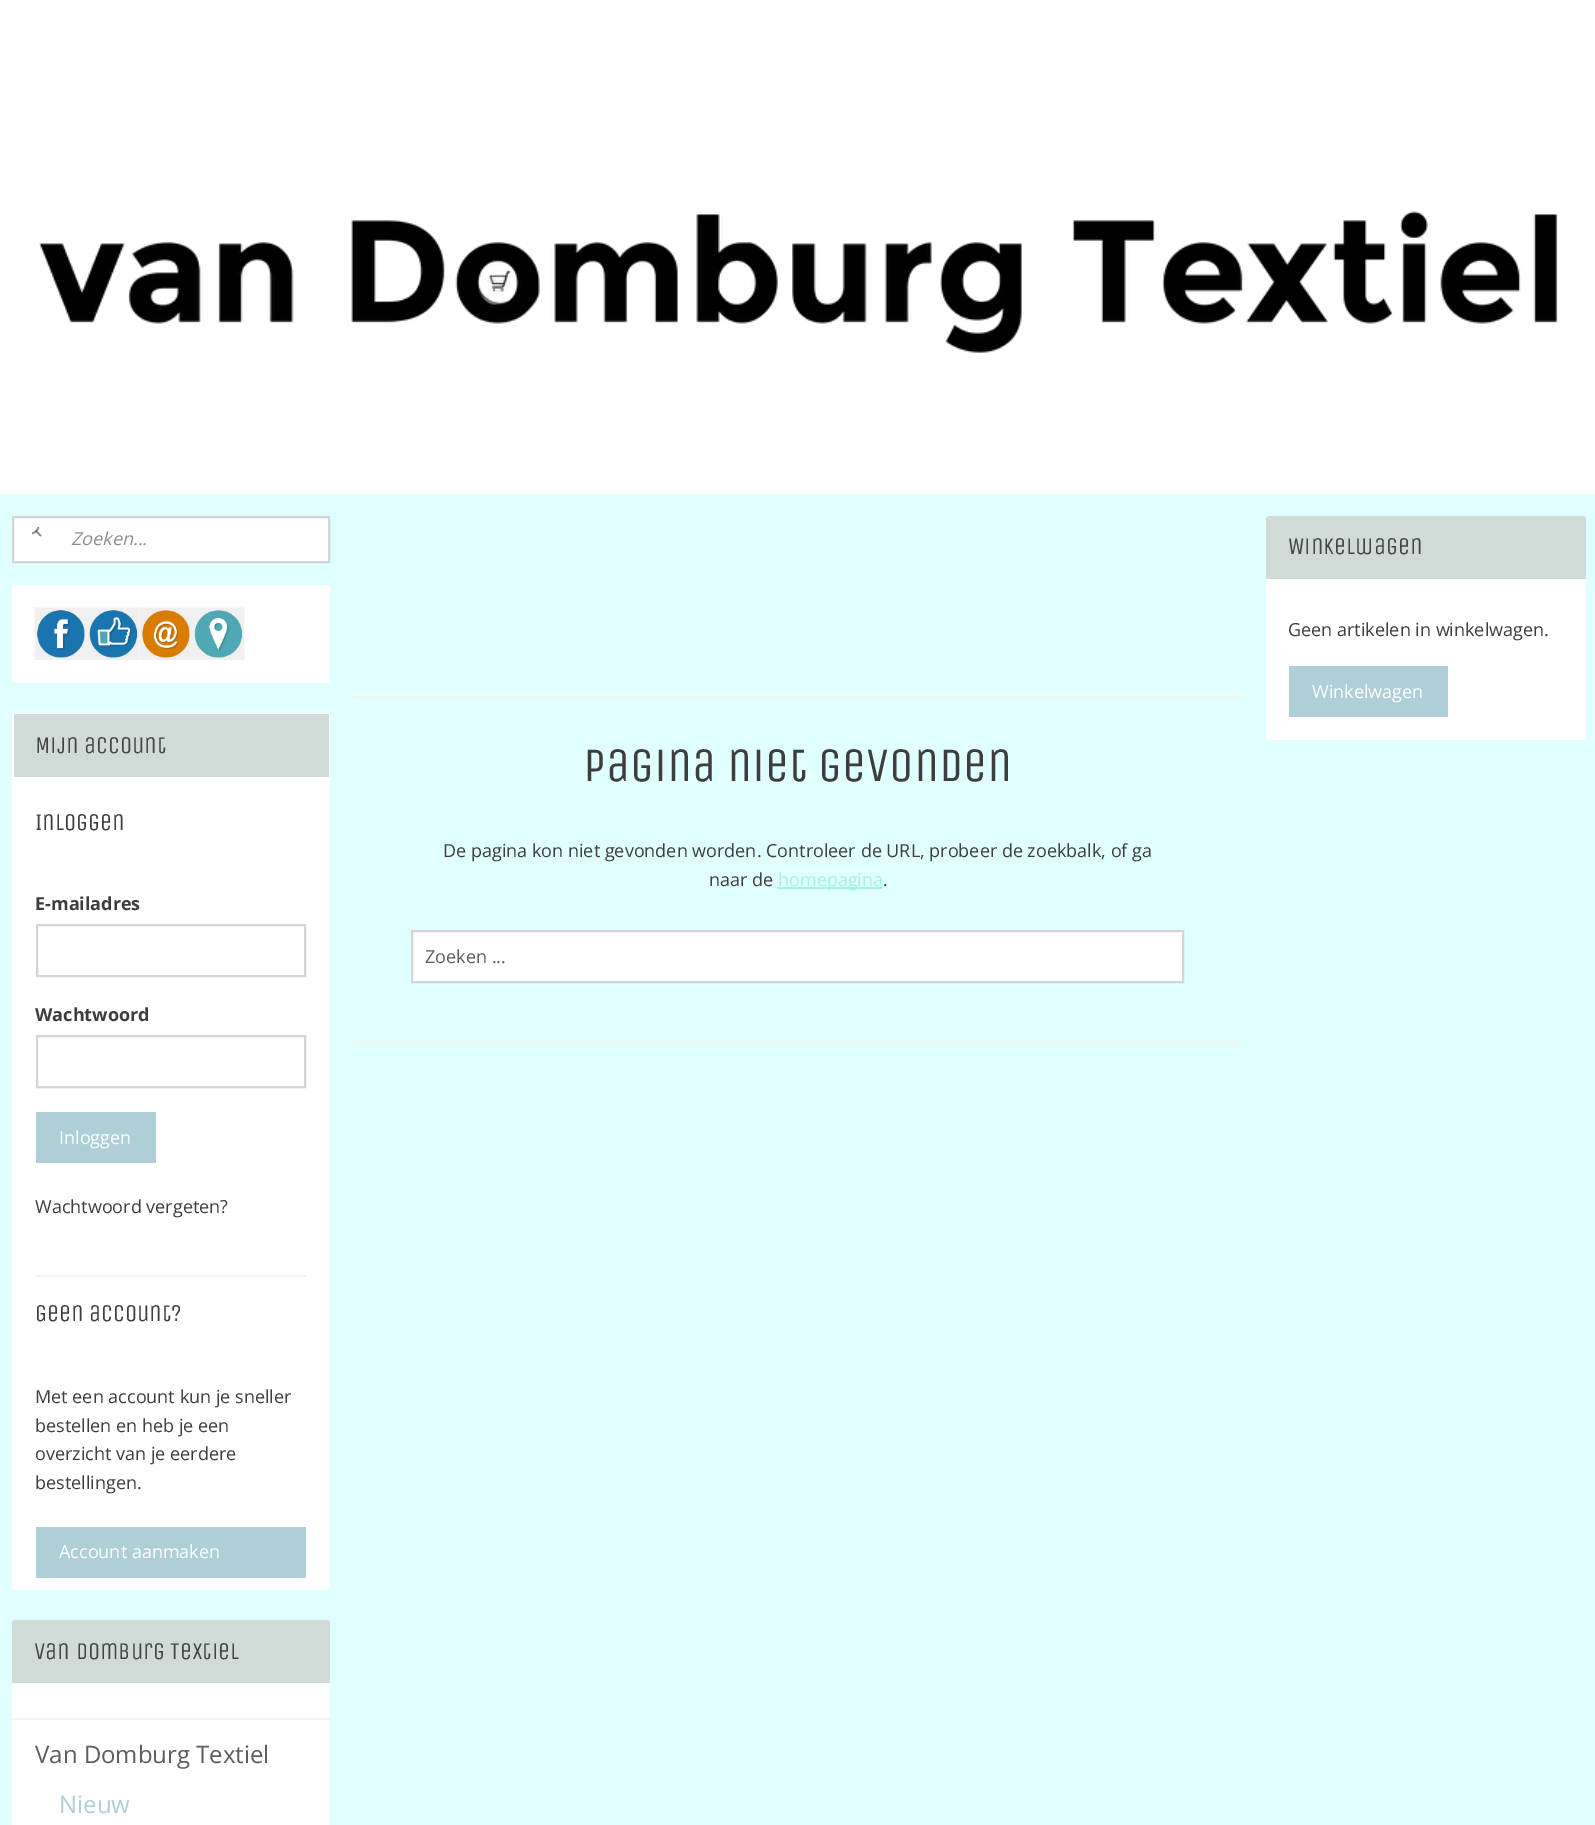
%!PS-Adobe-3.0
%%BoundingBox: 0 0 1595 1825
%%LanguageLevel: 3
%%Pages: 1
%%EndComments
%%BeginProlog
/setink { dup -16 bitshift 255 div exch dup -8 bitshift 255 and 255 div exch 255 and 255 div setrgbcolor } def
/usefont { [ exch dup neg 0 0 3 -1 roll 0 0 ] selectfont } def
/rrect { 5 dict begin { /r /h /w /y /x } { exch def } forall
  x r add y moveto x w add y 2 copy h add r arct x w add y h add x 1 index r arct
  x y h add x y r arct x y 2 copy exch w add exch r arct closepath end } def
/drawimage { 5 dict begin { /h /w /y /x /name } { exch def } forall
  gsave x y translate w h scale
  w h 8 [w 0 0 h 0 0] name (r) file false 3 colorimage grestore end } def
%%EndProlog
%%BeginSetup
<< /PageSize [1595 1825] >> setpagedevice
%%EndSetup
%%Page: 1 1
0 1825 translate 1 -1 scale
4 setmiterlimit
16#FFFFFF setink
0 0 1595 1825 rectfill
(img1.raw) 39 211 1519 143 drawimage
16#E0FFFF setink
0 494 1595 1331 rectfill
16#FFFFFF setink
13 517 moveto 329 517 lineto 329 562 lineto 13 562 lineto closepath gsave fill grestore
16#D3D5D9 setink
2 setlinewidth
stroke
(img2.raw) 32 527 10 10 drawimage
/OpenSans-Italic 18 usefont
16#898C91 setink
71 545 moveto (Zoeken...) show
16#FFFFFF setink
12 585 318 98 3 rrect fill
(img3.raw) 34 607 53 53 drawimage
(img4.raw) 87 607 53 53 drawimage
(img5.raw) 140 607 52 53 drawimage
(img6.raw) 192 607 53 53 drawimage
12 713 318 877 3 rrect fill
16#D0DBD7 setink
15.5 714 moveto 327.5 714 lineto 328.5 714 329 714.5 329 715.5 curveto 329 777 lineto 14 777 lineto 14 715.5 lineto 14 714.5 14.5 714 15.5 714 curveto closepath fill
/UnicaOne-Regular 24 usefont
16#454545 setink
35 753 moveto (Mijn account) show
16#3D3D3D setink
35 830 moveto (Inloggen) show
/OpenSans-Bold 18 usefont
35 910 moveto (E-mailadres) show
16#D3D5D9 setink
37 925 268 51 rectstroke
16#3D3D3D setink
35 1021 moveto (Wachtwoord) show
16#D3D5D9 setink
37 1036 268 51 rectstroke
16#AECFD8 setink
36 1112 120 51 rectfill
/OpenSans-Regular 18 usefont
16#FFFFFF setink
59 1144 moveto (Inloggen) show
16#3D3D3D setink
35 1213 moveto (Wachtwoord vergeten?) show
16#F7F3E9 setink
36 1275 270 2 rectfill
/UnicaOne-Regular 24 usefont
16#3D3D3D setink
35 1321 moveto (Geen account?) show
/OpenSans-Regular 18 usefont
[
    [(Met een account kun je sneller) 35 1403]
    [(bestellen en heb je een) 35 1432]
    [(overzicht van je eerdere) 35 1460]
    [(bestellingen.) 35 1489]
] { aload pop moveto show } forall
16#AECFD8 setink
36 1527 270 51 rectfill
16#FFFFFF setink
59 1558 moveto (Account aanmaken) show
12 1620 318 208 3 rrect fill
16#D0DBD7 setink
15 1620 moveto 327 1620 lineto 328.5 1620 330 1621.5 330 1623 curveto 330 1683 lineto 12 1683 lineto 12 1623 lineto 12 1621.5 13.5 1620 15 1620 curveto closepath fill
/UnicaOne-Regular 24 usefont
16#454545 setink
34 1659 moveto (van Domburg Textiel) show
16#F7F3E9 setink
12 1718 318 2 rectfill
/OpenSans-Regular 24 usefont
16#5E5E5E setink
35 1763 moveto (Van Domburg Textiel) show
16#AECFD8 setink
59 1813 moveto (Nieuw) show
16#FFFFFF setink
1266 516 320 224 3 rrect fill
16#D0DBD7 setink
1269 516 moveto 1583 516 lineto 1584.5 516 1586 517.5 1586 519 curveto 1586 579 lineto 1266 579 lineto 1266 519 lineto 1266 517.5 1267.5 516 1269 516 curveto closepath fill
/UnicaOne-Regular 24 usefont
16#454545 setink
1288 554 moveto (Winkelwagen) show
/OpenSans-Regular 18 usefont
16#3D3D3D setink
1288 636 moveto (Geen artikelen in winkelwagen.) show
16#AECFD8 setink
1289 666 159 51 rectfill
16#FFFFFF setink
1312 698 moveto (Winkelwagen) show
16#F7F3E9 setink
353 696 889 2 rectfill
353 1043 889 2 rectfill
/UnicaOne-Regular 48 usefont
16#3D3D3D setink
583 781 moveto (Pagina niet gevonden) show
/OpenSans-Regular 18 usefont
443 857 moveto (De pagina kon niet gevonden worden. Controleer de URL, probeer de zoekbalk, of ga) show
709 886 moveto (naar de) show
16#A1F4E6 setink
777 887 105 2 rectfill
778 886 moveto (homepagina) show
16#3D3D3D setink
883 886 moveto (.) show
16#FFFFFF setink
412 931 moveto 1183 931 lineto 1183 982 lineto 412 982 lineto closepath gsave fill grestore
16#D3D5D9 setink
stroke
16#575B62 setink
425 963 moveto (Zoeken ...) show
showpage
%%EOF
